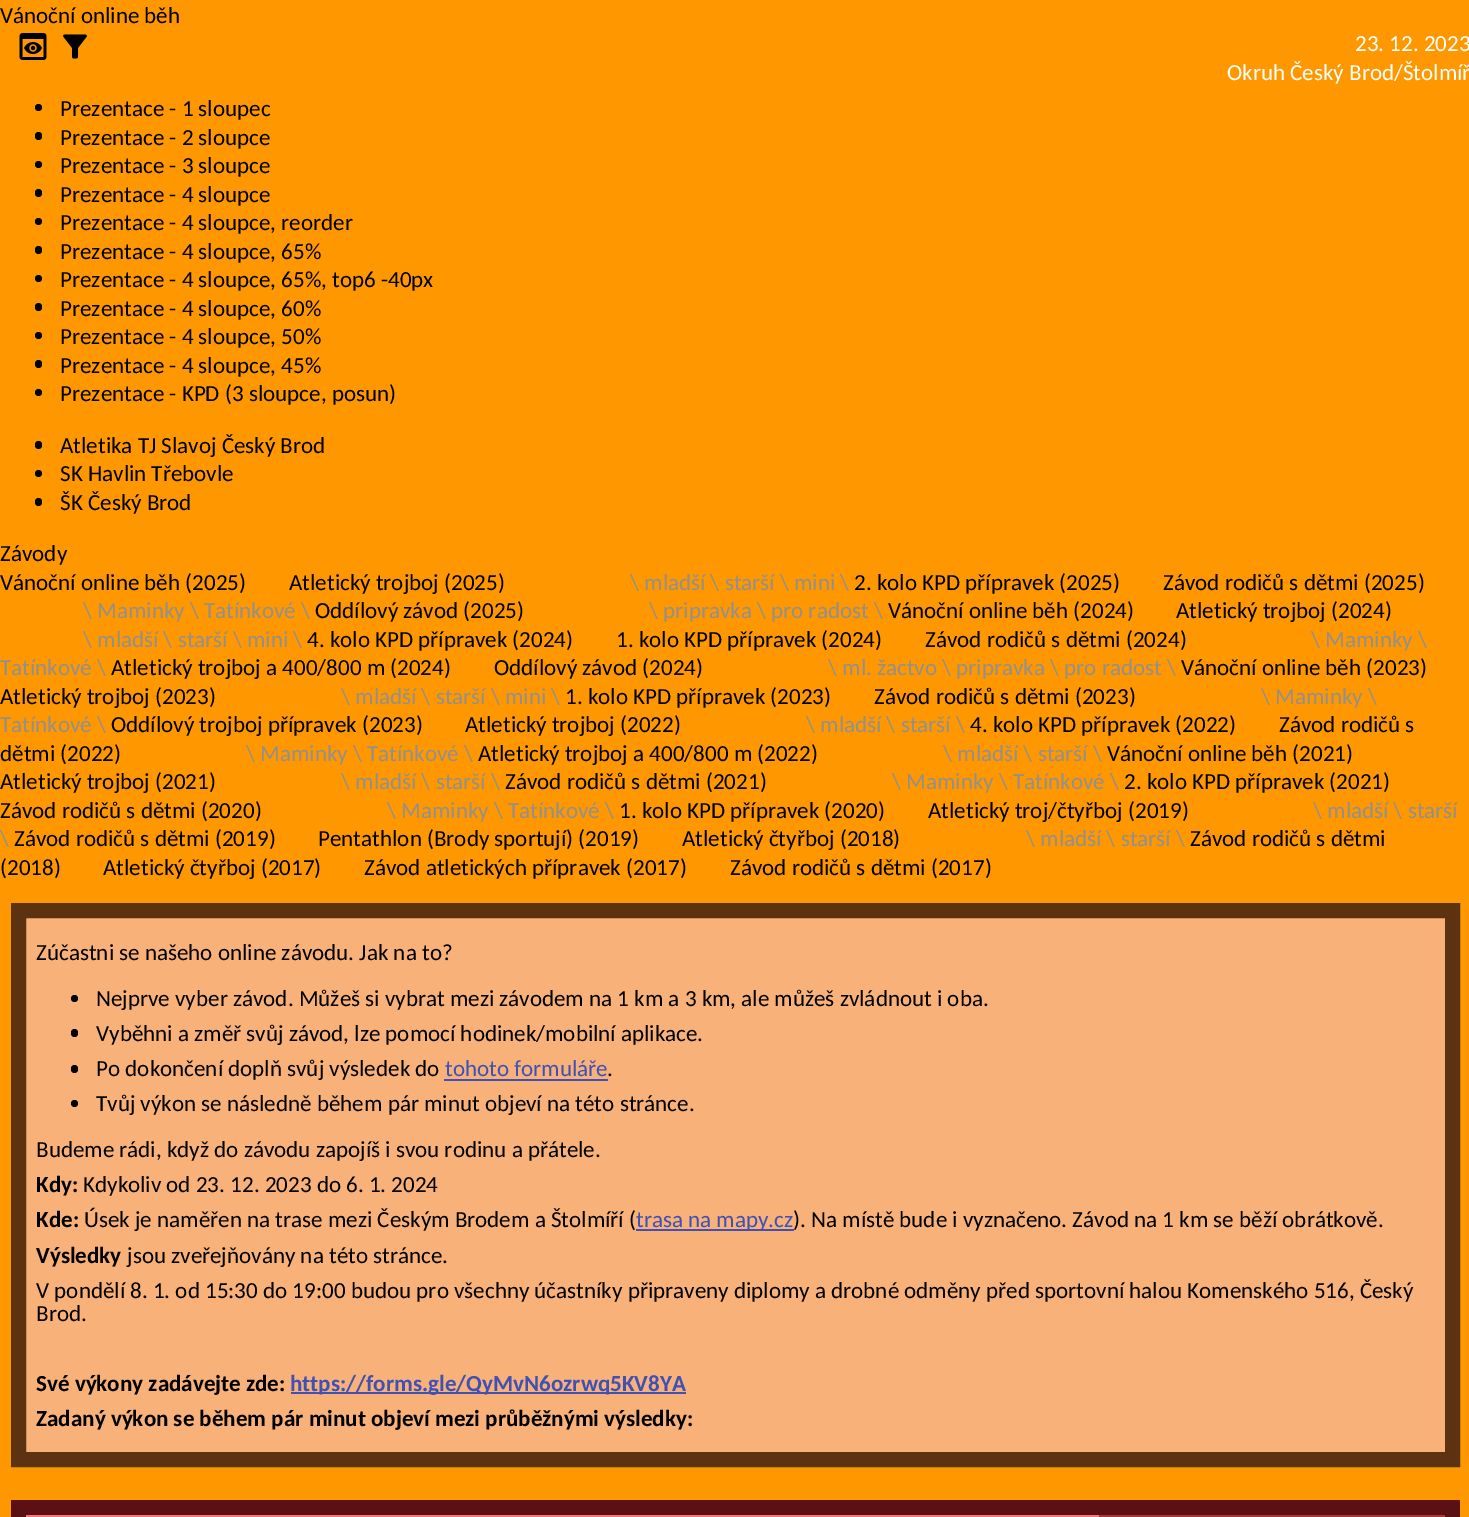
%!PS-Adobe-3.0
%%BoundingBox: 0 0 1469 1517
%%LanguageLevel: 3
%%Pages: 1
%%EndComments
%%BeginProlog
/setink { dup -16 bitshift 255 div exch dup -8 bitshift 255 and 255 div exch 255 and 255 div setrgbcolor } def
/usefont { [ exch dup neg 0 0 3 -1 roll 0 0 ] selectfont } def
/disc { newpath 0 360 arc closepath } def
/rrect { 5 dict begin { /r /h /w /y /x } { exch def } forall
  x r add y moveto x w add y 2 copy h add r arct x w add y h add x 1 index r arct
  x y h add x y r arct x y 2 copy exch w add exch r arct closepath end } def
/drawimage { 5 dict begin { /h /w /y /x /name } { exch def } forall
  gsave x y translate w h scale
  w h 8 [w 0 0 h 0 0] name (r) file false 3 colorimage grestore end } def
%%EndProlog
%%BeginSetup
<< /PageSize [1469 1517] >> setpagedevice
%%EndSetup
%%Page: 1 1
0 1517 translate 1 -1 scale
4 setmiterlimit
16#FF9800 setink
0 0 1469 1517 rectfill
/Carlito-Regular 23.05 usefont
16#000000 setink
0 23 moveto (Vánoční online běh) show
(img1.raw) 19 33 28 27 drawimage
(img2.raw) 63 34 24 25 drawimage
16#FFFFFF setink
1355 51 moveto (23. 12. 2023) show
1227 80 moveto (Okruh Český Brod/Štolmíř) show
16#000000 setink
38.5 107.5 3.5 disc fill
60 116 moveto (Prezentace - 1 sloupec) show
35 132 7 8 3.5 rrect fill
60 145 moveto (Prezentace - 2 sloupce) show
38.5 164.5 3.5 disc fill
60 173 moveto (Prezentace - 3 sloupce) show
35 189 7 8 3.5 rrect fill
60 202 moveto (Prezentace - 4 sloupce) show
38.5 221.5 3.5 disc fill
60 230 moveto (Prezentace - 4 sloupce, reorder) show
35 246 7 8 3.5 rrect fill
60 259 moveto (Prezentace - 4 sloupce, 65%) show
38.5 278.5 3.5 disc fill
60 287 moveto (Prezentace - 4 sloupce, 65%, top6 -40px) show
35 303 7 8 3.5 rrect fill
60 316 moveto (Prezentace - 4 sloupce, 60%) show
38.5 335.5 3.5 disc fill
60 344 moveto (Prezentace - 4 sloupce, 50%) show
35 360 7 8 3.5 rrect fill
60 373 moveto (Prezentace - 4 sloupce, 45%) show
38.5 392.5 3.5 disc fill
60 401 moveto (Prezentace - KPD \(3 sloupce, posun\)) show
35 441 7 8 3.5 rrect fill
60 453 moveto (Atletika TJ Slavoj Český Brod) show
38.5 473.5 3.5 disc fill
60 481 moveto (SK Havlin Třebovle) show
35 498 7 8 3.5 rrect fill
[
    [(ŠK Český Brod) 60 510]
    [(Závody) 0 561]
    [(Vánoční online běh \(2025\)) 0 590]
    [(Atletický trojboj \(2025\)) 289 590]
] { aload pop moveto show } forall
16#909090 setink
630 590 moveto (\\ mladší \\ starší \\ mini \\) show
16#000000 setink
854 590 moveto (2. kolo KPD přípravek \(2025\)) show
1163 590 moveto (Závod rodičů s dětmi \(2025\)) show
16#909090 setink
83 618 moveto (\\ Maminky \\ Tatínkové \\) show
16#000000 setink
315 618 moveto (Oddílový závod \(2025\)) show
16#909090 setink
649 618 moveto (\\ pripravka \\ pro radost \\) show
16#000000 setink
888 618 moveto (Vánoční online běh \(2024\)) show
1176 618 moveto (Atletický trojboj \(2024\)) show
16#909090 setink
83 647 moveto (\\ mladší \\ starší \\ mini \\) show
16#000000 setink
[
    [(4. kolo KPD přípravek \(2024\)) 307 647]
    [(1. kolo KPD přípravek \(2024\)) 616 647]
    [(Závod rodičů s dětmi \(2024\)) 925 647]
] { aload pop moveto show } forall
16#909090 setink
1311 647 moveto (\\ Maminky \\) show
0 675 moveto (Tatínkové \\) show
16#000000 setink
111 675 moveto (Atletický trojboj a 400/800 m \(2024\)) show
494 675 moveto (Oddílový závod \(2024\)) show
16#909090 setink
828 675 moveto (\\ ml. žactvo \\ pripravka \\ pro radost \\) show
16#000000 setink
1181 675 moveto (Vánoční online běh \(2023\)) show
0 704 moveto (Atletický trojboj \(2023\)) show
16#909090 setink
341 704 moveto (\\ mladší \\ starší \\ mini \\) show
16#000000 setink
565 704 moveto (1. kolo KPD přípravek \(2023\)) show
874 704 moveto (Závod rodičů s dětmi \(2023\)) show
16#909090 setink
1261 704 moveto (\\ Maminky \\) show
0 732 moveto (Tatínkové \\) show
16#000000 setink
111 732 moveto (Oddílový trojboj přípravek \(2023\)) show
465 732 moveto (Atletický trojboj \(2022\)) show
16#909090 setink
806 732 moveto (\\ mladší \\ starší \\) show
16#000000 setink
[
    [(4. kolo KPD přípravek \(2022\)) 970 732]
    [(Závod rodičů s) 1279 732]
    [(dětmi \(2022\)) 0 761]
] { aload pop moveto show } forall
16#909090 setink
246 761 moveto (\\ Maminky \\ Tatínkové \\) show
16#000000 setink
478 761 moveto (Atletický trojboj a 400/800 m \(2022\)) show
16#909090 setink
943 761 moveto (\\ mladší \\ starší \\) show
16#000000 setink
1107 761 moveto (Vánoční online běh \(2021\)) show
0 789 moveto (Atletický trojboj \(2021\)) show
16#909090 setink
341 789 moveto (\\ mladší \\ starší \\) show
16#000000 setink
505 789 moveto (Závod rodičů s dětmi \(2021\)) show
16#909090 setink
892 789 moveto (\\ Maminky \\ Tatínkové \\) show
16#000000 setink
1124 789 moveto (2. kolo KPD přípravek \(2021\)) show
0 818 moveto (Závod rodičů s dětmi \(2020\)) show
16#909090 setink
387 818 moveto (\\ Maminky \\ Tatínkové \\) show
16#000000 setink
619 818 moveto (1. kolo KPD přípravek \(2020\)) show
928 818 moveto (Atletický troj/čtyřboj \(2019\)) show
16#909090 setink
1313 818 moveto (\\ mladší \\ starší) show
0 846 moveto (\\) show
16#000000 setink
[
    [(Závod rodičů s dětmi \(2019\)) 14 846]
    [(Pentathlon \(Brody sportují\) \(2019\)) 318 846]
    [(Atletický čtyřboj \(2018\)) 682 846]
] { aload pop moveto show } forall
16#909090 setink
1026 846 moveto (\\ mladší \\ starší \\) show
16#000000 setink
[
    [(Závod rodičů s dětmi) 1190 846]
    [(\(2018\)) 0 875]
    [(Atletický čtyřboj \(2017\)) 103 875]
    [(Závod atletických přípravek \(2017\)) 364 875]
    [(Závod rodičů s dětmi \(2017\)) 730 875]
] { aload pop moveto show } forall
16#F8B178 setink
18.5 910.5 moveto 1452.5 910.5 lineto 1452.5 1459.5 lineto 18.5 1459.5 lineto closepath gsave fill grestore
16#5C3211 setink
15 setlinewidth
stroke
16#000000 setink
36 960 moveto (Zúčastni se našeho online závodu. Jak na to?) show
74.5 998.5 3.5 disc fill
96 1006 moveto (Nejprve vyber závod. Můžeš si vybrat mezi závodem na 1 km a 3 km, ale můžeš zvládnout i oba.) show
71 1029 7 8 3.5 rrect fill
96 1041 moveto (Vyběhni a změř svůj závod, lze pomocí hodinek/mobilní aplikace.) show
71 1065 7 8 3.5 rrect fill
96 1076 moveto (Po dokončení doplň svůj výsledek do) show
16#3F51B5 setink
445 1076 moveto (tohoto formuláře) show
444 1079 164 2 rectfill
16#000000 setink
607 1076 moveto (.) show
74.5 1103.5 3.5 disc fill
96 1111 moveto (Tvůj výkon se následně během pár minut objeví na této stránce.) show
36 1157 moveto (Budeme rádi, když do závodu zapojíš i svou rodinu a přátele.) show
/Carlito-Bold 23.05 usefont
36 1192 moveto (Kdy:) show
/Carlito-Regular 23.05 usefont
83 1192 moveto (Kdykoliv od 23. 12. 2023 do 6. 1. 2024) show
/Carlito-Bold 23.05 usefont
36 1227 moveto (Kde:) show
/Carlito-Regular 23.05 usefont
84 1227 moveto (Úsek je naměřen na trase mezi Českým Brodem a Štolmíří \() show
16#3F51B5 setink
636 1229 158 2 rectfill
636 1227 moveto (trasa na mapy.cz) show
16#000000 setink
793 1227 moveto (\). Na místě bude i vyznačeno. Závod na 1 km se běží obrátkově.) show
/Carlito-Bold 23.05 usefont
36 1263 moveto (Výsledky) show
/Carlito-Regular 23.05 usefont
[
    [(jsou zveřejňovány na této stránce.) 127 1263]
    [(V pondělí 8. 1. od 15:30 do 19:00 budou pro všechny účastníky připraveny diplomy a drobné odměny před sportovní halou Komenského 516, Český) 36 1298]
    [(Brod.) 36 1321]
] { aload pop moveto show } forall
/Carlito-Bold 23.05 usefont
36 1391 moveto (Své výkony zadávejte zde:) show
16#3F51B5 setink
291 1392 395 2 rectfill
290 1391 moveto (https://forms.gle/QyMvN6ozrwq5KV8YA) show
16#000000 setink
36 1426 moveto (Zadaný výkon se během pár minut objeví mezi průběžnými výsledky:) show
[
    [26 1500 1419 15 16#5B1113]
    [1445 1500 15 17 16#5B1113]
    [11 1500 15 17 16#5B1113]
    [26 1515 1073 2 16#F6767A]
    [1099 1515 346 2 16#A8383B]
] { aload pop setink rectfill } forall
showpage
%%EOF
